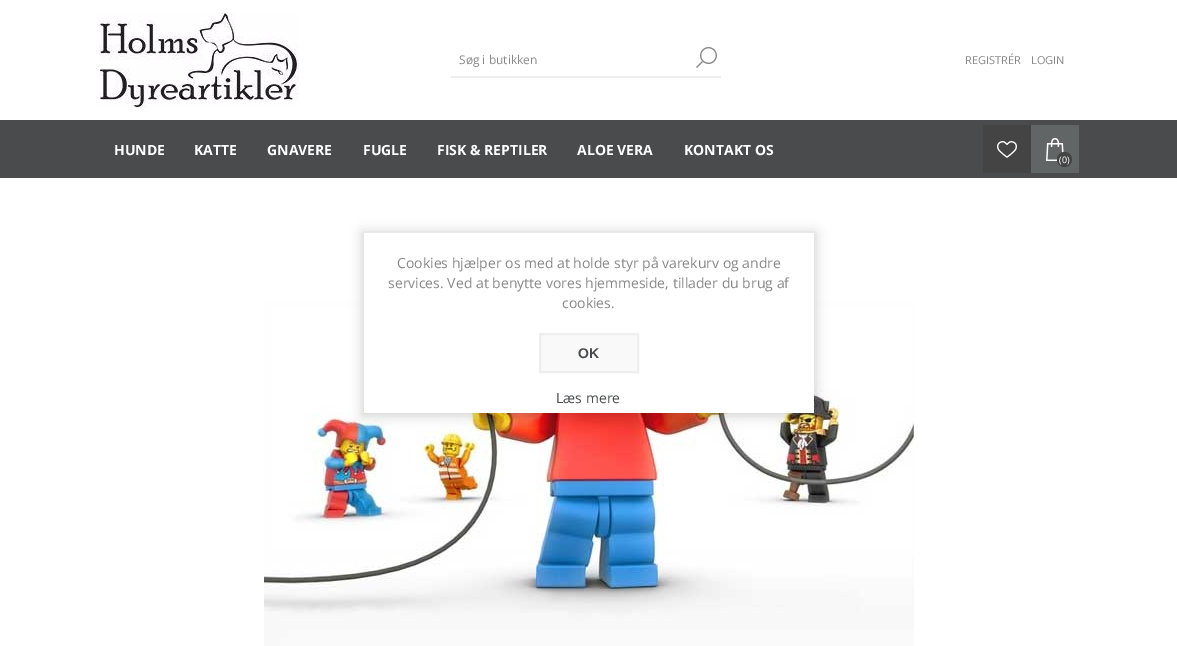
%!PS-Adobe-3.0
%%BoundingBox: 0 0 1177 646
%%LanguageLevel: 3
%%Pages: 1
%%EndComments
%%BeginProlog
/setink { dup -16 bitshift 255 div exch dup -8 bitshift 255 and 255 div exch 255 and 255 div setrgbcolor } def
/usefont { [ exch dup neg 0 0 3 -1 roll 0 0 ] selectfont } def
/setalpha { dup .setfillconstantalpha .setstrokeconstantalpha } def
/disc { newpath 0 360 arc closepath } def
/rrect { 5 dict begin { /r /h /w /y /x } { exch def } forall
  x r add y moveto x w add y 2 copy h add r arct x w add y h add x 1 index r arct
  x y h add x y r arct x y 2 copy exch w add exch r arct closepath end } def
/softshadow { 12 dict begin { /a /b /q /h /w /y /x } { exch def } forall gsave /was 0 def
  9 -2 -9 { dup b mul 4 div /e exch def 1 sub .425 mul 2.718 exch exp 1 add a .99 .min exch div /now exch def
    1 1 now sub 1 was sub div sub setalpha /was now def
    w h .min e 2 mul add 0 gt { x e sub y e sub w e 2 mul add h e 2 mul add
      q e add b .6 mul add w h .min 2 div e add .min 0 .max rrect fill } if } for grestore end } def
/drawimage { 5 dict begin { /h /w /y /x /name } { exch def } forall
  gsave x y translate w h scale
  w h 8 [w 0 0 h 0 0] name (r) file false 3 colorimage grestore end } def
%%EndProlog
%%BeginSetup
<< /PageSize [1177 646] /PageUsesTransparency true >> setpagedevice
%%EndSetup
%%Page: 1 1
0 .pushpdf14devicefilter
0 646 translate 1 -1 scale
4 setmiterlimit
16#FFFFFF setink
0 0 1177 646 rectfill
(img1.raw) 99 12 200 96 drawimage
16#EEEEEE setink
451 76 270 2 rectfill
/OpenSans-Regular 12 usefont
16#888888 setink
459 64 moveto (Søg i butikken) show
(img2.raw) 696 47 21 21 drawimage
/OpenSans-Regular 11 usefont
965 64 moveto (REGISTRÉR) show
1031 64 moveto (LOGIN) show
16#494B4C setink
0 120 1177 58 rectfill
/OpenSans-Bold 14 usefont
16#FFFFFF setink
[
    [(HUNDE) 114 155]
    [(KATTE) 194 155]
    [(GNAVERE) 267 155]
    [(FUGLE) 363 155]
    [(FISK & REPTILER) 437 155]
    [(ALOE VERA) 577 155]
    [(KONTAKT OS) 684 155]
] { aload pop moveto show } forall
16#444444 setink
983 125 48 48 rectfill
(img3.raw) 997 141 20 17 drawimage
16#626566 setink
1031 125 48 48 rectfill
(img4.raw) 1046 138 18 23 drawimage
16#444444 setink
1064.5 159.5 7.5 disc fill
/OpenSans-Regular 9 usefont
16#FFFFFF setink
1059 163 moveto (\(0\)) show
(img5.raw) 264 301 650 345 drawimage
16#000000 setink
362 232 454 184 0 6 0.17 softshadow
16#FFFFFF setink
364 233 450 180 rectfill
/OpenSans-Regular 14 usefont
16#888888 setink
[
    [(Cookies hjælper os med at holde styr på varekurv og andre) 397 268]
    [(services. Ved at benytte vores hjemmeside, tillader du brug af) 388 288]
    [(cookies.) 562 308]
] { aload pop moveto show } forall
16#F9F9F9 setink
540 334 moveto 638 334 lineto 638 372 lineto 540 372 lineto closepath gsave fill grestore
16#EEEEEE setink
2 setlinewidth
stroke
/LiberationSans-Bold 14 usefont
16#494B4C setink
578 358 moveto (OK) show
/OpenSans-Regular 14 usefont
556 403 moveto (Læs mere) show
.poppdf14devicefilter showpage
%%EOF
